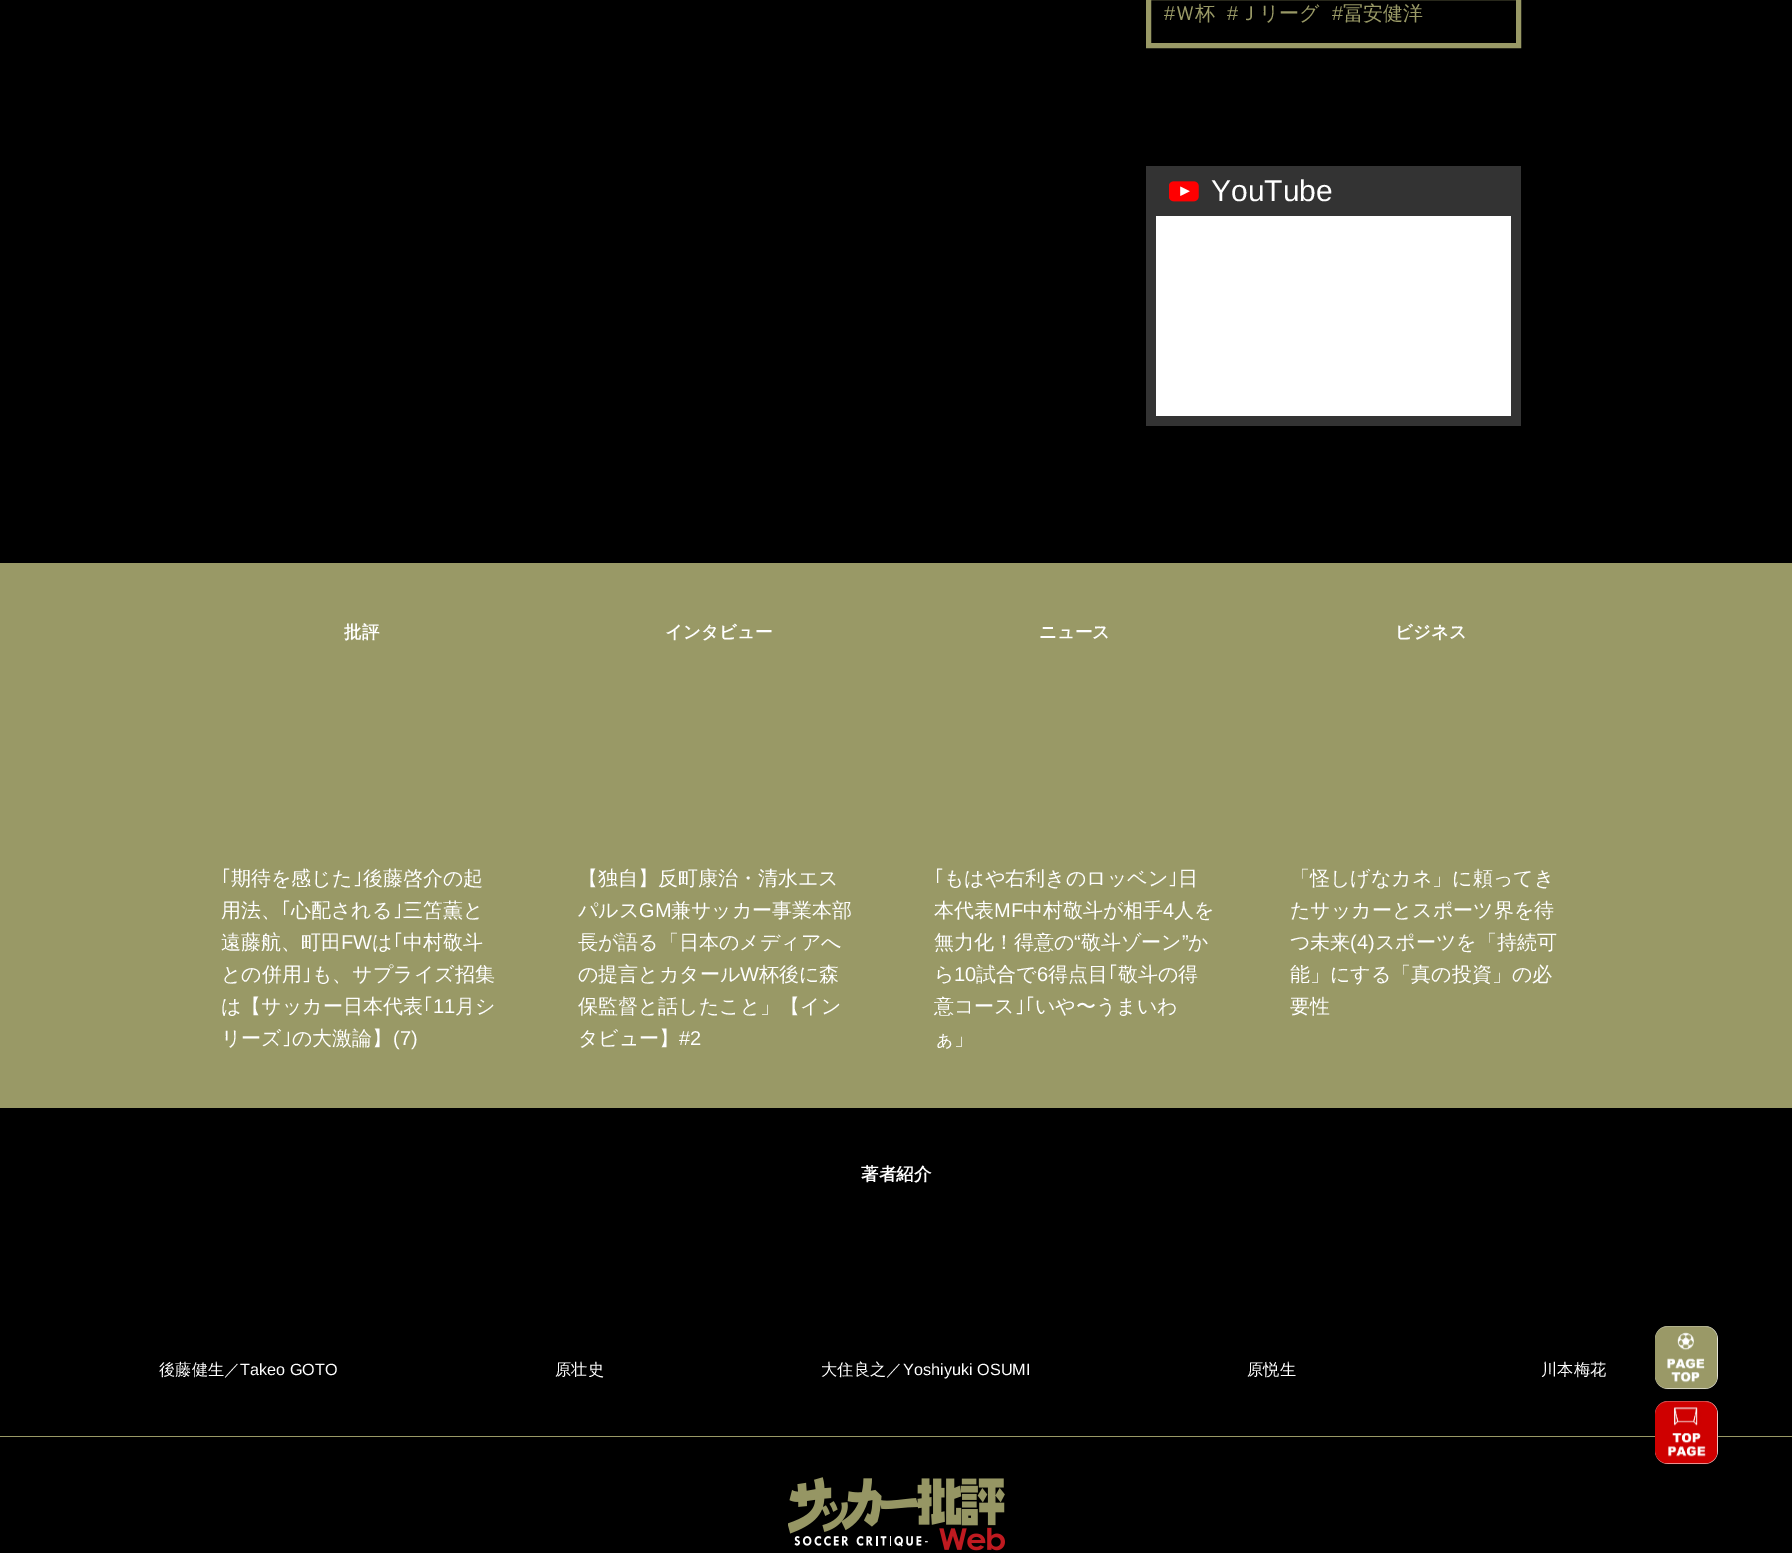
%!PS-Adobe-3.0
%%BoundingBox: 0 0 1792 1553
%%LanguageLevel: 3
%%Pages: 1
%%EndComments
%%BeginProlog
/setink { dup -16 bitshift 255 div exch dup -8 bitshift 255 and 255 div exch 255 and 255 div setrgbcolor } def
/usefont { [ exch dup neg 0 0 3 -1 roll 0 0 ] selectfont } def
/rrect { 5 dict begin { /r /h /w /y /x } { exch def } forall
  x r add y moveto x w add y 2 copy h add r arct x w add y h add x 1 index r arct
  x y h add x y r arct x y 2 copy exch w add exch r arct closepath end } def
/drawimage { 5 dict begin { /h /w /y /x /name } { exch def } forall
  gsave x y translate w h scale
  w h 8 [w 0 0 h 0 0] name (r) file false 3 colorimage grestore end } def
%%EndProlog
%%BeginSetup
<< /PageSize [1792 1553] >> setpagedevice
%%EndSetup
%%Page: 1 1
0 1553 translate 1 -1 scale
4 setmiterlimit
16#000000 setink
0 0 1792 1553 rectfill
16#999966 setink
5 setlinewidth
1148.5 -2.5 370 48 rectstroke
/LiberationSans-Regular 20 usefont
1164 20 moveto (#) show
/WenQuanYiZenHei-Medium 20 usefont
1175 20 moveto (Ｗ杯) show
/LiberationSans-Regular 20 usefont
1227 20 moveto (#) show
/WenQuanYiZenHei-Medium 20 usefont
1239 20 moveto (Ｊリーグ) show
/LiberationSans-Regular 20 usefont
1332 20 moveto (#) show
/WenQuanYiZenHei-Medium 20 usefont
1343 20 moveto (冨安健洋) show
16#333333 setink
1146 166 375 260 rectfill
(img1.raw) 1169 181 30 21 drawimage
/LiberationSans-Regular 30 usefont
16#FFFFFF setink
1211 201 moveto (YouTube) show
1156 216 355 200 rectfill
16#999966 setink
0 563 1792 545 rectfill
/WenQuanYiZenHei-Bold 17.5 usefont
16#FFFFFF setink
344 638 moveto (批評) show
/IPAPGothic-Regular 20 usefont
221 885 moveto (｢) show
/WenQuanYiZenHei-Medium 20 usefont
231 885 moveto (期待を感じた) show
/IPAPGothic-Regular 20 usefont
353 885 moveto (｣) show
/WenQuanYiZenHei-Medium 20 usefont
363 885 moveto (後藤啓介の起) show
221 917 moveto (用法、) show
/IPAPGothic-Regular 20 usefont
281 917 moveto (｢) show
/WenQuanYiZenHei-Medium 20 usefont
291 917 moveto (心配される) show
/IPAPGothic-Regular 20 usefont
393 917 moveto (｣) show
/WenQuanYiZenHei-Medium 20 usefont
403 917 moveto (三笘薫と) show
221 949 moveto (遠藤航、町田) show
/LiberationSans-Regular 20 usefont
341 949 moveto (FW) show
/WenQuanYiZenHei-Medium 20 usefont
372 949 moveto (は) show
/IPAPGothic-Regular 20 usefont
393 949 moveto (｢) show
/WenQuanYiZenHei-Medium 20 usefont
403 949 moveto (中村敬斗) show
221 981 moveto (との併用) show
/IPAPGothic-Regular 20 usefont
302 981 moveto (｣) show
/WenQuanYiZenHei-Medium 20 usefont
312 981 moveto (も、サプライズ招集) show
221 1013 moveto (は【サッカー日本代表) show
/IPAPGothic-Regular 20 usefont
423 1013 moveto (｢) show
/LiberationSans-Regular 20 usefont
433 1013 moveto (11) show
/WenQuanYiZenHei-Medium 20 usefont
455 1013 moveto (月シ) show
221 1045 moveto (リーズ) show
/IPAPGothic-Regular 20 usefont
282 1045 moveto (｣) show
/WenQuanYiZenHei-Medium 20 usefont
292 1045 moveto (の大激論】) show
/LiberationSans-Regular 20 usefont
393 1045 moveto (\(7\)) show
/WenQuanYiZenHei-Bold 17.5 usefont
665 638 moveto (インタビュー) show
/WenQuanYiZenHei-Medium 20 usefont
578 885 moveto (【独自】反町康治・清水エス) show
578 917 moveto (パルス) show
/LiberationSans-Regular 20 usefont
639 917 moveto (GM) show
/WenQuanYiZenHei-Medium 20 usefont
[
    [(兼サッカー事業本部) 671 917]
    [(長が語る「日本のメディアへ) 578 949]
    [(の提言とカタール) 578 981]
] { aload pop moveto show } forall
/LiberationSans-Regular 20 usefont
740 981 moveto (W) show
/WenQuanYiZenHei-Medium 20 usefont
[
    [(杯後に森) 759 981]
    [(保監督と話したこと」【イン) 578 1013]
    [(タビュー】) 578 1045]
] { aload pop moveto show } forall
/LiberationSans-Regular 20 usefont
679 1045 moveto (#2) show
/WenQuanYiZenHei-Bold 17.5 usefont
1039 638 moveto (ニュース) show
/IPAPGothic-Regular 20 usefont
934 885 moveto (｢) show
/WenQuanYiZenHei-Medium 20 usefont
944 885 moveto (もはや右利きのロッベン) show
/IPAPGothic-Regular 20 usefont
1168 885 moveto (｣) show
/WenQuanYiZenHei-Medium 20 usefont
1178 885 moveto (日) show
934 917 moveto (本代表) show
/LiberationSans-Regular 20 usefont
994 917 moveto (MF) show
/WenQuanYiZenHei-Medium 20 usefont
1023 917 moveto (中村敬斗が相手) show
/LiberationSans-Regular 20 usefont
1163 917 moveto (4) show
/WenQuanYiZenHei-Medium 20 usefont
1174 917 moveto (人を) show
934 949 moveto (無力化！得意の) show
/LiberationSans-Regular 20 usefont
1074 949 moveto (“) show
/WenQuanYiZenHei-Medium 20 usefont
1081 949 moveto (敬斗ゾーン) show
/LiberationSans-Regular 20 usefont
1182 949 moveto (”) show
/WenQuanYiZenHei-Medium 20 usefont
1188 949 moveto (か) show
934 981 moveto (ら) show
/LiberationSans-Regular 20 usefont
954 981 moveto (10) show
/WenQuanYiZenHei-Medium 20 usefont
976 981 moveto (試合で) show
/LiberationSans-Regular 20 usefont
1037 981 moveto (6) show
/WenQuanYiZenHei-Medium 20 usefont
1048 981 moveto (得点目) show
/IPAPGothic-Regular 20 usefont
1108 981 moveto (｢) show
/WenQuanYiZenHei-Medium 20 usefont
1118 981 moveto (敬斗の得) show
934 1013 moveto (意コース) show
/IPAPGothic-Regular 20 usefont
1015 1013 moveto (｣｢) show
/WenQuanYiZenHei-Medium 20 usefont
1035 1013 moveto (いや〜うまいわ) show
934 1045 moveto (ぁ」) show
/WenQuanYiZenHei-Bold 17.5 usefont
1395 638 moveto (ビジネス) show
/WenQuanYiZenHei-Medium 20 usefont
[
    [(「怪しげなカネ」に頼ってき) 1290 885]
    [(たサッカーとスポーツ界を待) 1290 917]
    [(つ未来) 1290 949]
] { aload pop moveto show } forall
/LiberationSans-Regular 20 usefont
1350 949 moveto (\(4\)) show
/WenQuanYiZenHei-Medium 20 usefont
[
    [(スポーツを「持続可) 1375 949]
    [(能」にする「真の投資」の必) 1290 981]
    [(要性) 1290 1013]
] { aload pop moveto show } forall
/WenQuanYiZenHei-Bold 17.5 usefont
861 1180 moveto (著者紹介) show
/WenQuanYiZenHei-Medium 16.25 usefont
159 1375 moveto (後藤健生／) show
/LiberationSans-Regular 16.25 usefont
240 1375 moveto (Takeo GOTO) show
/WenQuanYiZenHei-Medium 16.25 usefont
555 1375 moveto (原壮史) show
821 1375 moveto (大住良之／) show
/LiberationSans-Regular 16.25 usefont
903 1375 moveto (Yoshiyuki OSUMI) show
/WenQuanYiZenHei-Medium 16.25 usefont
1247 1375 moveto (原悦生) show
1541 1375 moveto (川本梅花) show
16#999966 setink
0 1436 1792 1 rectfill
(img2.raw) 788 1477 217 74 drawimage
16#FFFFFF setink
1655 1326 63 63 13 rrect fill
(img3.raw) 1655 1326 63 64 drawimage
1655 1401 63 63 13 rrect fill
(img4.raw) 1655 1401 63 64 drawimage
showpage
%%EOF
